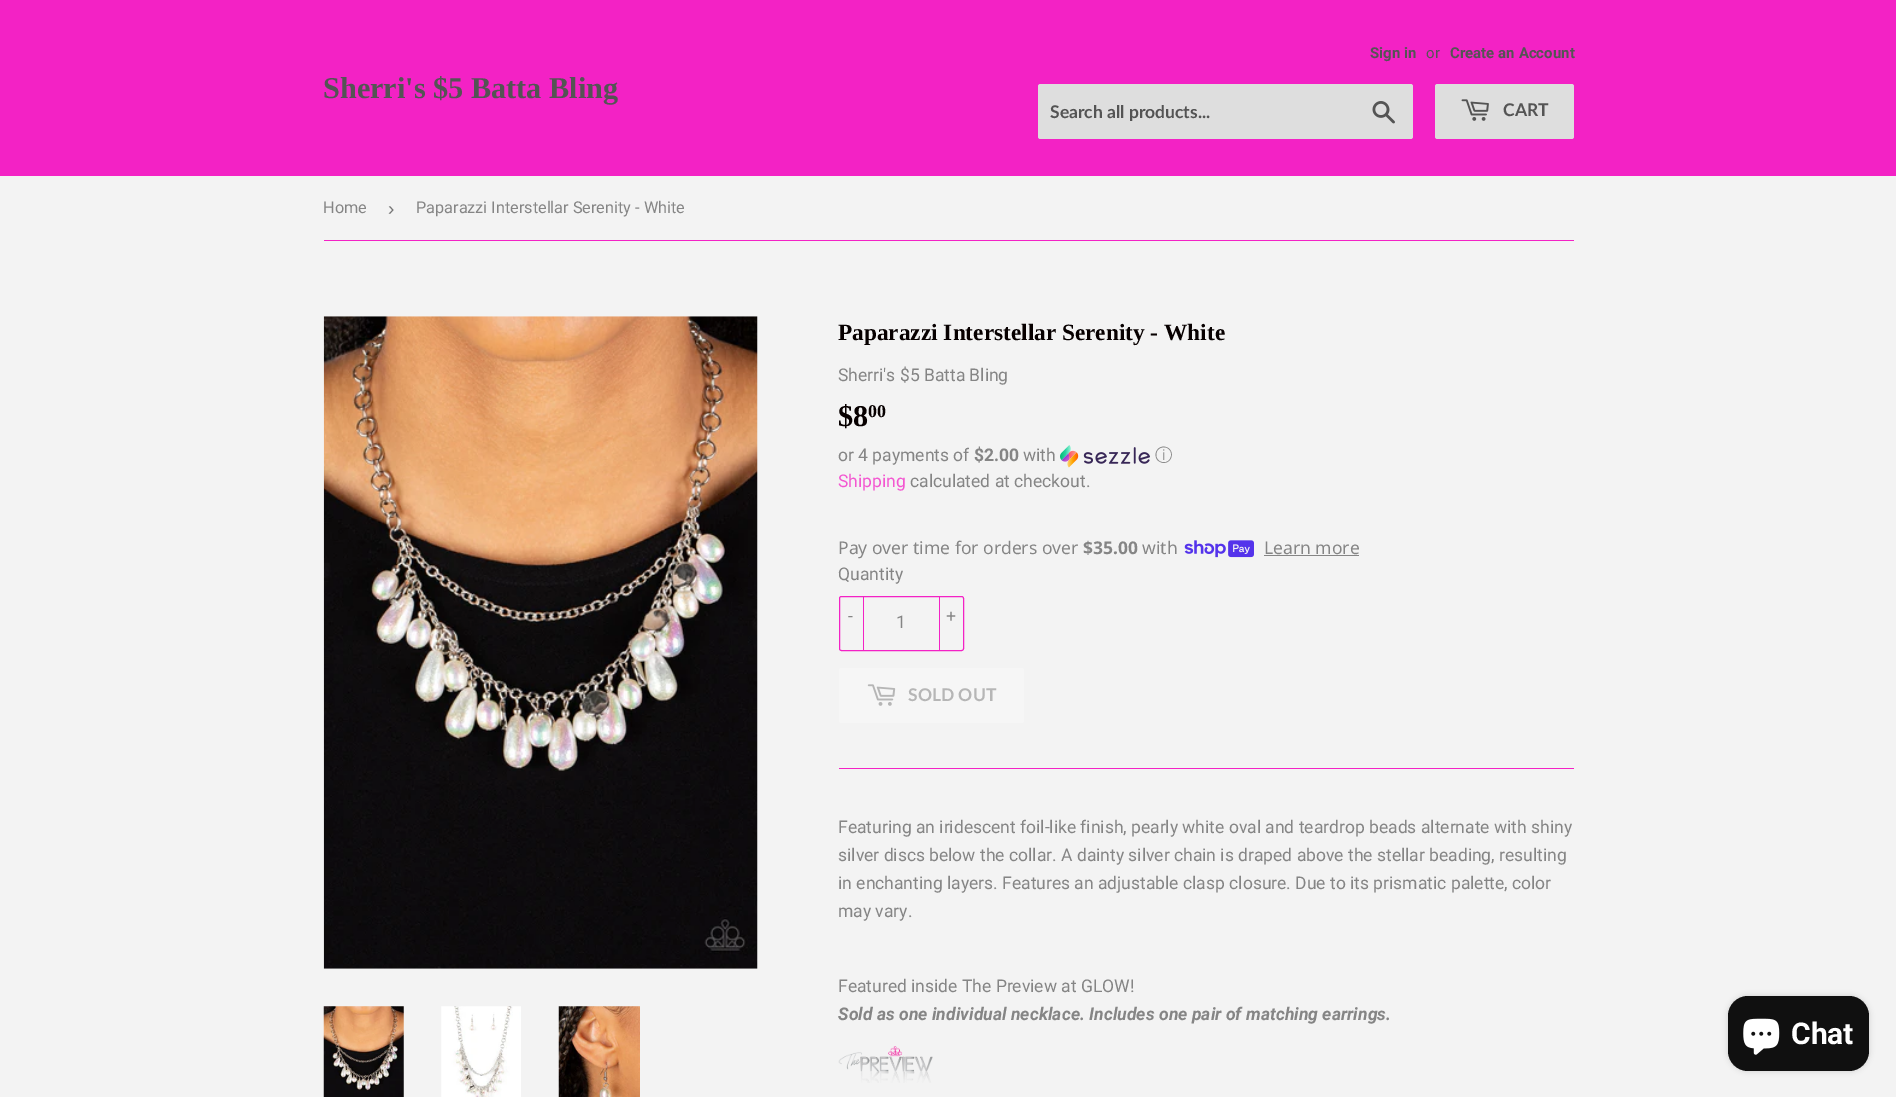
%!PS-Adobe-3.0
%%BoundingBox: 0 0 1896 1097
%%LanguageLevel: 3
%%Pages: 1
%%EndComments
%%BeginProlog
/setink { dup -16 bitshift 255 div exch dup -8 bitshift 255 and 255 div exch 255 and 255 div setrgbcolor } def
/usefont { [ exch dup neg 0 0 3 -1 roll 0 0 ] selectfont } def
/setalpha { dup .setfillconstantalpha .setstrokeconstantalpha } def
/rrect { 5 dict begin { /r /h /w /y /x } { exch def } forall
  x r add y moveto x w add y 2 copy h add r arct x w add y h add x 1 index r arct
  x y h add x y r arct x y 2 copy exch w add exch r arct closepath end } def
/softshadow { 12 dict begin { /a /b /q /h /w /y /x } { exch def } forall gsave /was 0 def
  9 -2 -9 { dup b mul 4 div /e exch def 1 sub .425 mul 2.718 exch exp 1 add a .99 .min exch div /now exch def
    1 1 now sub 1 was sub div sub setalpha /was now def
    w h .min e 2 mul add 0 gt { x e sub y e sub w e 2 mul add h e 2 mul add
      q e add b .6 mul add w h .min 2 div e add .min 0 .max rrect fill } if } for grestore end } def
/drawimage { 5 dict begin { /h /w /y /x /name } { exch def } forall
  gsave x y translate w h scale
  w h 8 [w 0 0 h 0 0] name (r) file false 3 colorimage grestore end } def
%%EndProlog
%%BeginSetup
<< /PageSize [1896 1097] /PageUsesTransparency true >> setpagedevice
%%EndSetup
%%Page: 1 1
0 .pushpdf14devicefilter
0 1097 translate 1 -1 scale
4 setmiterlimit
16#F3F3F3 setink
0 0 1896 1097 rectfill
16#F322C5 setink
0 0 1896 176 rectfill
/LiberationSerif-Bold 30.25 usefont
16#545454 setink
323 98 moveto (Sherri's $5 Batta Bling) show
/Roboto-Bold 15 usefont
1370 58 moveto (Sign in) show
/Roboto-Regular 15 usefont
1426 58 moveto (or) show
/Roboto-Bold 15 usefont
1450 58 moveto (Create an Account) show
16#DEDEDE setink
1038 84 375 55 2.5 rrect fill
/Lato-Bold 17.5 usefont
16#545454 setink
1050 118 moveto (Search all products...) show
(img1.raw) 1372 101 23 23 drawimage
16#DEDEDE setink
1435 84 139 55 2.5 rrect fill
(img2.raw) 1461 99 28 22 drawimage
16#545454 setink
1503 116 moveto (CART) show
16#F322C5 setink
324 240 1250 1 rectfill
/Roboto-Regular 16.25 usefont
16#858585 setink
323 213 moveto (Home) show
/LiberationSans-Regular 19 usefont
16#767676 setink
388 215 moveto (›) show
/Roboto-Regular 16.25 usefont
16#858585 setink
416 213 moveto (Paparazzi Interstellar Serenity - White) show
(img3.raw) 323 316 435 653 drawimage
(img4.raw) 323 1006 81 91 drawimage
(img5.raw) 441 1006 80 91 drawimage
(img6.raw) 558 1006 82 91 drawimage
/LiberationSerif-Bold 23.3 usefont
16#070000 setink
838 340 moveto (Paparazzi Interstellar Serenity - White) show
/Roboto-Regular 17.5 usefont
16#858585 setink
838 381 moveto (Sherri's $5 Batta Bling) show
/LiberationSerif-Bold 30.25 usefont
16#070000 setink
838 426 moveto ($8) show
/LiberationSerif-Bold 18 usefont
868 417 moveto (00) show
/Roboto-Regular 17.5 usefont
16#858585 setink
838 461 moveto (or 4 payments of) show
/Roboto-Bold 17.5 usefont
974 461 moveto ($2.00) show
/Roboto-Regular 17.5 usefont
1023 461 moveto (with) show
(img7.raw) 1060 445 90 23 drawimage
/WenQuanYiZenHei-Medium 17.5 usefont
1155 461 moveto (ⓘ) show
/Roboto-Regular 17.5 usefont
16#F358D1 setink
838 487 moveto (Shipping) show
16#858585 setink
910 487 moveto (calculated at checkout.) show
/NotoSans-Regular 17.5 usefont
838 554 moveto (Pay over time for orders over) show
/NotoSans-Bold 17.5 usefont
1083 554 moveto ($35.00) show
/NotoSans-Regular 17.5 usefont
1142 554 moveto (with) show
(img8.raw) 1184 540 70 18 drawimage
1264 554 moveto (Learn more) show
1264 555 95 1 rectfill
/Roboto-Regular 17.5 usefont
838 580 moveto (Quantity) show
16#F322C5 setink
839.5 596.5 124 54 2 rrect stroke
863 596 1 55 rectfill
16#858585 setink
848 622 moveto (-) show
896 628 moveto (1) show
16#F322C5 setink
939 596 1 55 rectfill
16#858585 setink
946 622 moveto (+) show
16#F6F6F6 setink
839 668 185 55 2.5 rrect fill
(img9.raw) 867 684 29 22 drawimage
/Lato-Bold 17.5 usefont
16#B6B6B6 setink
908 701 moveto (SOLD OUT) show
16#F322C5 setink
839 768 735 1 rectfill
/Roboto-Regular 17.5 usefont
16#858585 setink
[
    [(Featuring an iridescent foil-like finish, pearly white oval and teardrop beads alternate with shiny) 838 833]
    [(silver discs below the collar. A dainty silver chain is draped above the stellar beading, resulting) 838 861]
    [(in enchanting layers. Features an adjustable clasp closure. Due to its prismatic palette, color) 838 889]
    [(may vary.) 838 917]
    [(Featured inside The Preview at GLOW!) 838 992]
] { aload pop moveto show } forall
/Roboto-BoldItalic 17.5 usefont
838 1020 moveto (Sold as one individual necklace. Includes one pair of matching earrings.) show
(img10.raw) 838 1046 95 37 drawimage
16#000000 setink
1728 996 141 75 20 3 0.15 softshadow
16#101010 setink
1728 996 141 75 20 rrect fill
(img11.raw) 1743 1018 37 37 drawimage
/Roboto-Bold 30 usefont
16#FFFFFF setink
1791 1044 moveto (Chat) show
.poppdf14devicefilter showpage
%%EOF
